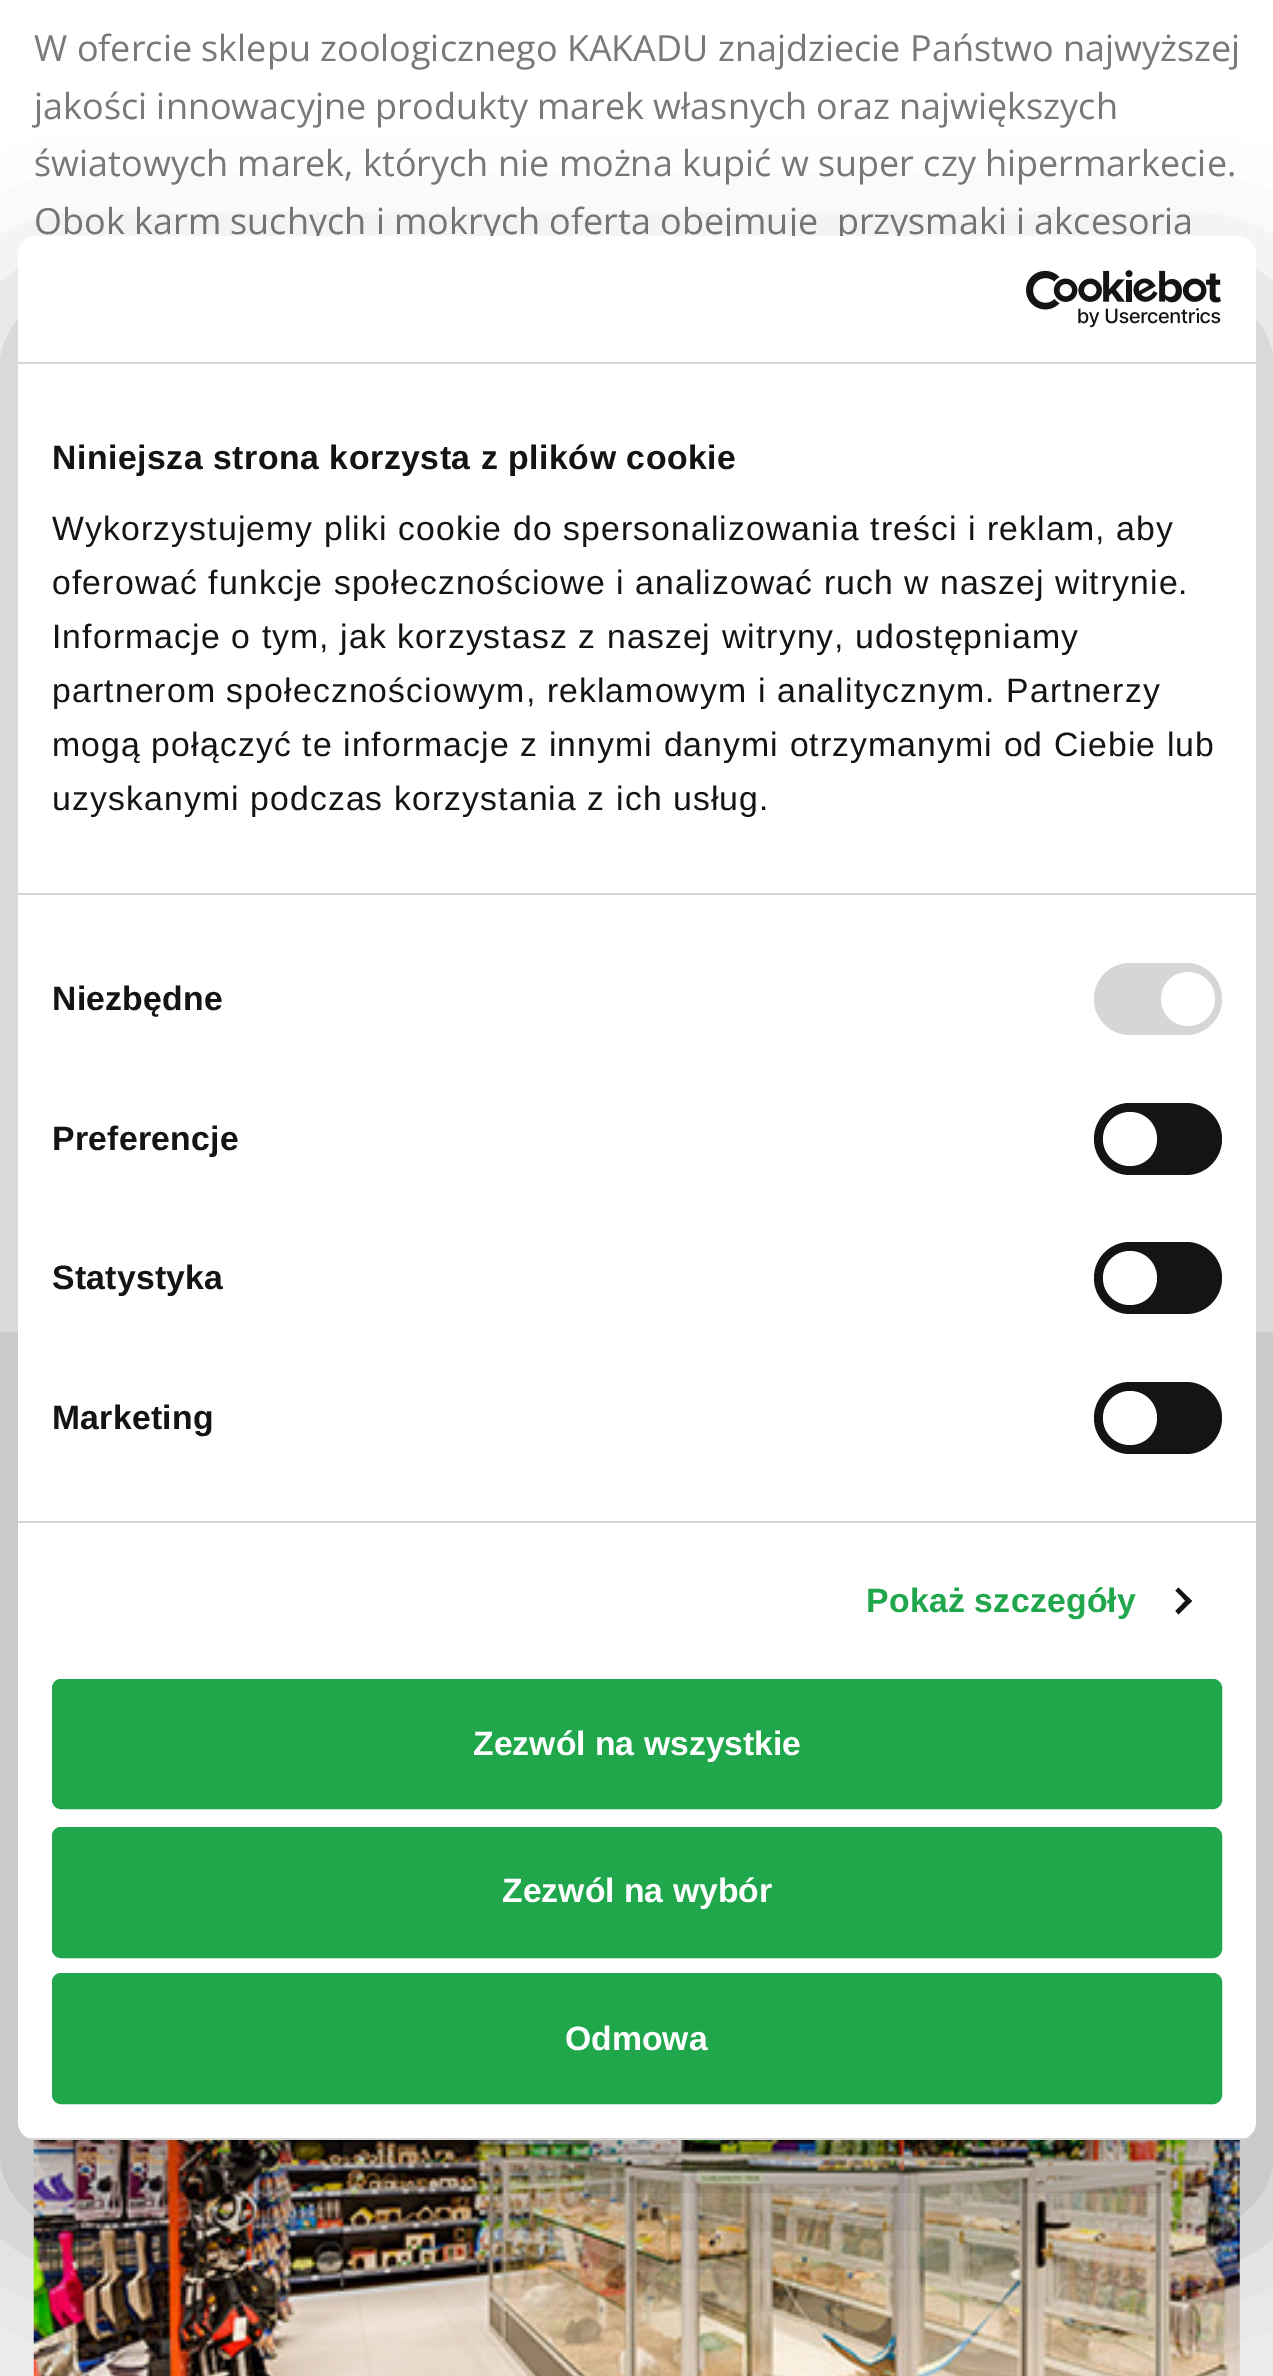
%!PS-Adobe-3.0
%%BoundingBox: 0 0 1273 2376
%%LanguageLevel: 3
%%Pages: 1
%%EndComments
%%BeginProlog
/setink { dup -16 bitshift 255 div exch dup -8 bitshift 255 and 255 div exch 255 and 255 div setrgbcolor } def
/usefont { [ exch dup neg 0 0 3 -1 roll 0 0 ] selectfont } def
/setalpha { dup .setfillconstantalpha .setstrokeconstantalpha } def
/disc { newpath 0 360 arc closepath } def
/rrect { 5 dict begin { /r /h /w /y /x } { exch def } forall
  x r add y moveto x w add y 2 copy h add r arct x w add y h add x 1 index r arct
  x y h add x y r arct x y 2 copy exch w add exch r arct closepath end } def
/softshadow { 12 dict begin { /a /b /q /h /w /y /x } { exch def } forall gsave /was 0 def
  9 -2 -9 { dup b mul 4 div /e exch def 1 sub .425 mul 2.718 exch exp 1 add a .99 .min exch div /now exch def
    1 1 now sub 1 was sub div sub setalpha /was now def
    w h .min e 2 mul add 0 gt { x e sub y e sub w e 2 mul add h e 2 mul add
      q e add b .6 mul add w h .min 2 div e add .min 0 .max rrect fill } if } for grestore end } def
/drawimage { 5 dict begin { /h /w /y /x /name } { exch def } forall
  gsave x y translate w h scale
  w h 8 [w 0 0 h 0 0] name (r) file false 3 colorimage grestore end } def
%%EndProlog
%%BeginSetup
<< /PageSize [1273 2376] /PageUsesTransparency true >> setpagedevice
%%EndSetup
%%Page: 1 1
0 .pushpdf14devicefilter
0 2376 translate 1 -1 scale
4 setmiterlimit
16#FFFFFF setink
0 0 1273 2376 rectfill
/OpenSans-Regular 36 usefont
16#797979 setink
[
    [(W ofercie sklepu zoologicznego KAKADU znajdziecie Państwo najwyższej) 34 61]
    [(jakości innowacyjne produkty marek własnych oraz największych) 34 119]
    [(światowych marek, których nie można kupić w super czy hipermarkecie.) 34 176]
    [(Obok karm suchych i mokrych oferta obejmuje  przysmaki i akcesoria) 34 234]
] { aload pop moveto show } forall
16#EDEDED setink
0 1332 1273 1044 rectfill
(img1.raw) 33 2139 1207 237 drawimage
16#000000 setink
18 308 1238 1904 18 76.5 0.3 softshadow
16#FFFFFF setink
18 236 1238 1904 18 rrect fill
16#D6D6D6 setink
18 362 1238 2 rectfill
(img2.raw) 1026 270 195 58 drawimage
18 893 1238 2 rectfill
/LiberationSans-Bold 33.75 usefont
16#141414 setink
52 469 moveto 0.55 0 (Niniejsza strona korzysta z plików cookie) ashow
/LiberationSans-Regular 33.75 usefont
52 540 moveto 1.12 0 (Wykorzystujemy pliki cookie do spersonalizowania treści i reklam, aby) ashow
52 594 moveto 1.12 0 (oferować funkcje społecznościowe i analizować ruch w naszej witrynie.) ashow
52 648 moveto 1.12 0 (Informacje o tym, jak korzystasz z naszej witryny, udostępniamy) ashow
52 702 moveto 1.12 0 (partnerom społecznościowym, reklamowym i analitycznym. Partnerzy) ashow
52 756 moveto 1.12 0 (mogą połączyć te informacje z innymi danymi otrzymanymi od Ciebie lub) ashow
52 810 moveto 1.12 0 (uzyskanymi podczas korzystania z ich usług.) ashow
16#D6D6D6 setink
18 1521 1238 2 rectfill
/LiberationSans-Bold 33.75 usefont
16#141414 setink
52 1010 moveto 0.25 0 (Niezbędne) ashow
16#D6D6D6 setink
1094 963 128 72 36 rrect fill
16#FFFFFF setink
1188 999 27 disc fill
16#141414 setink
52 1150 moveto 0.25 0 (Preferencje) ashow
1094 1103 128 72 36 rrect fill
16#FFFFFF setink
1130 1139 27 disc fill
16#141414 setink
52 1289 moveto 0.25 0 (Statystyka) ashow
1094 1242 128 72 36 rrect fill
16#FFFFFF setink
1130 1278 27 disc fill
16#141414 setink
52 1429 moveto 0.25 0 (Marketing) ashow
1094 1382 128 72 36 rrect fill
16#FFFFFF setink
1130 1418 27 disc fill
16#20A64B setink
866 1612 moveto 0.25 0 (Pokaż szczegóły) ashow
16#141414 setink
1178.5 1587.5 moveto 1192 1601 lineto 1188.5 1604 lineto 1175.5 1590.5 lineto closepath fill
1188.5 1597.5 moveto 1192 1601 lineto 1178.5 1614.5 lineto 1175.5 1611 lineto closepath fill
gsave
18 236 1238 1904 18 rrect clip newpath
16#D6D6D6 setink
28 2138 1218 2 rectfill
grestore
16#20A64B setink
54.5 1681.5 1165 125 6.5 rrect gsave fill grestore
5 setlinewidth
stroke
16#FFFFFF setink
473 1755 moveto (Zezwól na wszystkie) show
16#20A64B setink
54.5 1829.5 1165 126 6.5 rrect gsave fill grestore
stroke
16#FFFFFF setink
502 1902 moveto (Zezwól na wybór) show
16#20A64B setink
54.5 1975.5 1165 126 6.5 rrect gsave fill grestore
stroke
16#FFFFFF setink
565 2050 moveto (Odmowa) show
.poppdf14devicefilter showpage
%%EOF
